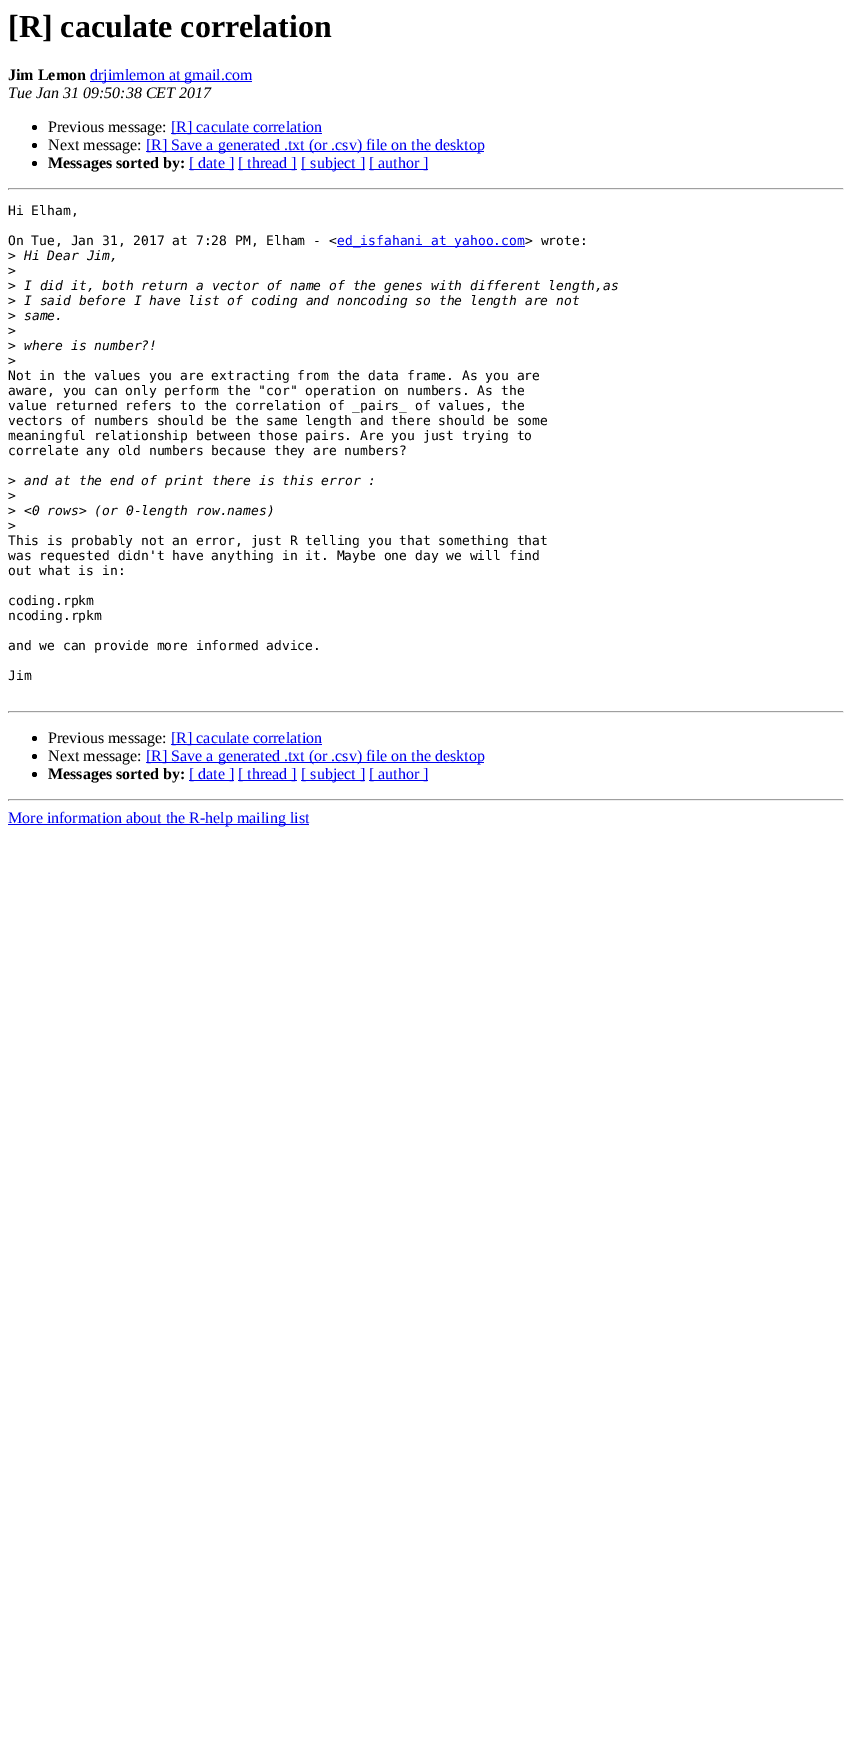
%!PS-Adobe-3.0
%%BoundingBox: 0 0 852 1754
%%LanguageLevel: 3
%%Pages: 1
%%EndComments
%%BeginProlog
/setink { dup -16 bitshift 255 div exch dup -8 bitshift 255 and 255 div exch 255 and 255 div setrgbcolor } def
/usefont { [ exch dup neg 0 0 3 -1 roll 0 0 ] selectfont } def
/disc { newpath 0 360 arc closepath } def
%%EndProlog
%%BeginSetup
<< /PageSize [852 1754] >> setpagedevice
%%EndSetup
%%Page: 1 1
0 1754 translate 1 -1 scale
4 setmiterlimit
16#FFFFFF setink
0 0 852 1754 rectfill
/LiberationSerif-Bold 32 usefont
16#000000 setink
8 37 moveto ([R] caculate correlation) show
/LiberationSerif-Bold 16 usefont
8 80 moveto (Jim Lemon) show
16#0000EE setink
90 81 162 1 rectfill
/LiberationSerif-Regular 16 usefont
90 80 moveto (drjimlemon at gmail.com) show
/LiberationSerif-Italic 16 usefont
16#000000 setink
8 98 moveto (Tue Jan 31 09:50:38 CET 2017) show
34.5 127.5 2.5 disc fill
/LiberationSerif-Regular 16 usefont
48 132 moveto (Previous message:) show
16#0000EE setink
171 133 151 1 rectfill
171 132 moveto ([R] caculate correlation) show
16#000000 setink
34.5 145.5 2.5 disc fill
48 150 moveto (Next message:) show
16#0000EE setink
146 151 338 1 rectfill
146 150 moveto ([R] Save a generated .txt \(or .csv\) file on the desktop) show
16#000000 setink
34.5 163.5 2.5 disc fill
/LiberationSerif-Bold 16 usefont
48 168 moveto (Messages sorted by:) show
16#0000EE setink
189 169 45 1 rectfill
/LiberationSerif-Regular 16 usefont
189 168 moveto ([ date ]) show
238 169 59 1 rectfill
238 168 moveto ([ thread ]) show
301 169 64 1 rectfill
301 168 moveto ([ subject ]) show
369 169 59 1 rectfill
369 168 moveto ([ author ]) show
[
    [8 188 836 1 16#9F9F9F]
    [843 188 1 2 16#EEEEEE]
    [8 189 836 1 16#EEEEEE]
    [8 188 1 2 16#9F9F9F]
] { aload pop setink rectfill } forall
/DejaVuSansMono-Regular 13 usefont
16#000000 setink
8 215 moveto (Hi Elham,) show
8 245 moveto (On Tue, Jan 31, 2017 at 7:28 PM, Elham - <) show
16#0000EE setink
337 246 188 1 rectfill
337 245 moveto (ed_isfahani at yahoo.com) show
16#000000 setink
525 245 moveto (> wrote:) show
8 260 moveto (>) show
/DejaVuSansMono-Italic 13 usefont
24 260 moveto (Hi Dear Jim,) show
/DejaVuSansMono-Regular 13 usefont
8 275 moveto (>) show
8 290 moveto (>) show
/DejaVuSansMono-Italic 13 usefont
24 290 moveto (I did it, both return a vector of name of the genes with different length,as) show
/DejaVuSansMono-Regular 13 usefont
8 305 moveto (>) show
/DejaVuSansMono-Italic 13 usefont
24 305 moveto (I said before I have list of coding and noncoding so the length are not) show
/DejaVuSansMono-Regular 13 usefont
8 320 moveto (>) show
/DejaVuSansMono-Italic 13 usefont
24 320 moveto (same.) show
/DejaVuSansMono-Regular 13 usefont
8 335 moveto (>) show
8 350 moveto (>) show
/DejaVuSansMono-Italic 13 usefont
24 350 moveto (where is number?!) show
/DejaVuSansMono-Regular 13 usefont
[
    [(>) 8 365]
    [(Not in the values you are extracting from the data frame. As you are) 8 380]
    [(aware, you can only perform the "cor" operation on numbers. As the) 8 395]
    [(value returned refers to the correlation of _pairs_ of values, the) 8 410]
    [(vectors of numbers should be the same length and there should be some) 8 425]
    [(meaningful relationship between those pairs. Are you just trying to) 8 440]
    [(correlate any old numbers because they are numbers?) 8 455]
    [(>) 8 485]
] { aload pop moveto show } forall
/DejaVuSansMono-Italic 13 usefont
24 485 moveto (and at the end of print there is this error :) show
/DejaVuSansMono-Regular 13 usefont
8 500 moveto (>) show
8 515 moveto (>) show
/DejaVuSansMono-Italic 13 usefont
24 515 moveto (<0 rows> \(or 0-length row.names\)) show
/DejaVuSansMono-Regular 13 usefont
[
    [(>) 8 530]
    [(This is probably not an error, just R telling you that something that) 8 545]
    [(was requested didn't have anything in it. Maybe one day we will find) 8 560]
    [(out what is in:) 8 575]
    [(coding.rpkm) 8 605]
    [(ncoding.rpkm) 8 620]
    [(and we can provide more informed advice.) 8 650]
    [(Jim) 8 680]
] { aload pop moveto show } forall
[
    [8 711 836 1 16#9F9F9F]
    [843 711 1 2 16#EEEEEE]
    [8 712 836 1 16#EEEEEE]
    [8 711 1 2 16#9F9F9F]
] { aload pop setink rectfill } forall
16#000000 setink
34.5 738.5 2.5 disc fill
/LiberationSerif-Regular 16 usefont
48 743 moveto (Previous message:) show
16#0000EE setink
171 744 151 1 rectfill
171 743 moveto ([R] caculate correlation) show
16#000000 setink
34.5 756.5 2.5 disc fill
48 761 moveto (Next message:) show
16#0000EE setink
146 762 338 1 rectfill
146 761 moveto ([R] Save a generated .txt \(or .csv\) file on the desktop) show
16#000000 setink
34.5 774.5 2.5 disc fill
/LiberationSerif-Bold 16 usefont
48 779 moveto (Messages sorted by:) show
16#0000EE setink
189 780 45 1 rectfill
/LiberationSerif-Regular 16 usefont
189 779 moveto ([ date ]) show
238 780 59 1 rectfill
238 779 moveto ([ thread ]) show
301 780 64 1 rectfill
301 779 moveto ([ subject ]) show
369 780 59 1 rectfill
369 779 moveto ([ author ]) show
[
    [8 799 836 1 16#9F9F9F]
    [843 799 1 2 16#EEEEEE]
    [8 800 836 1 16#EEEEEE]
    [8 799 1 2 16#9F9F9F]
    [8 824 301 1 16#0000EE]
] { aload pop setink rectfill } forall
8 823 moveto (More information about the R-help mailing list) show
showpage
%%EOF
